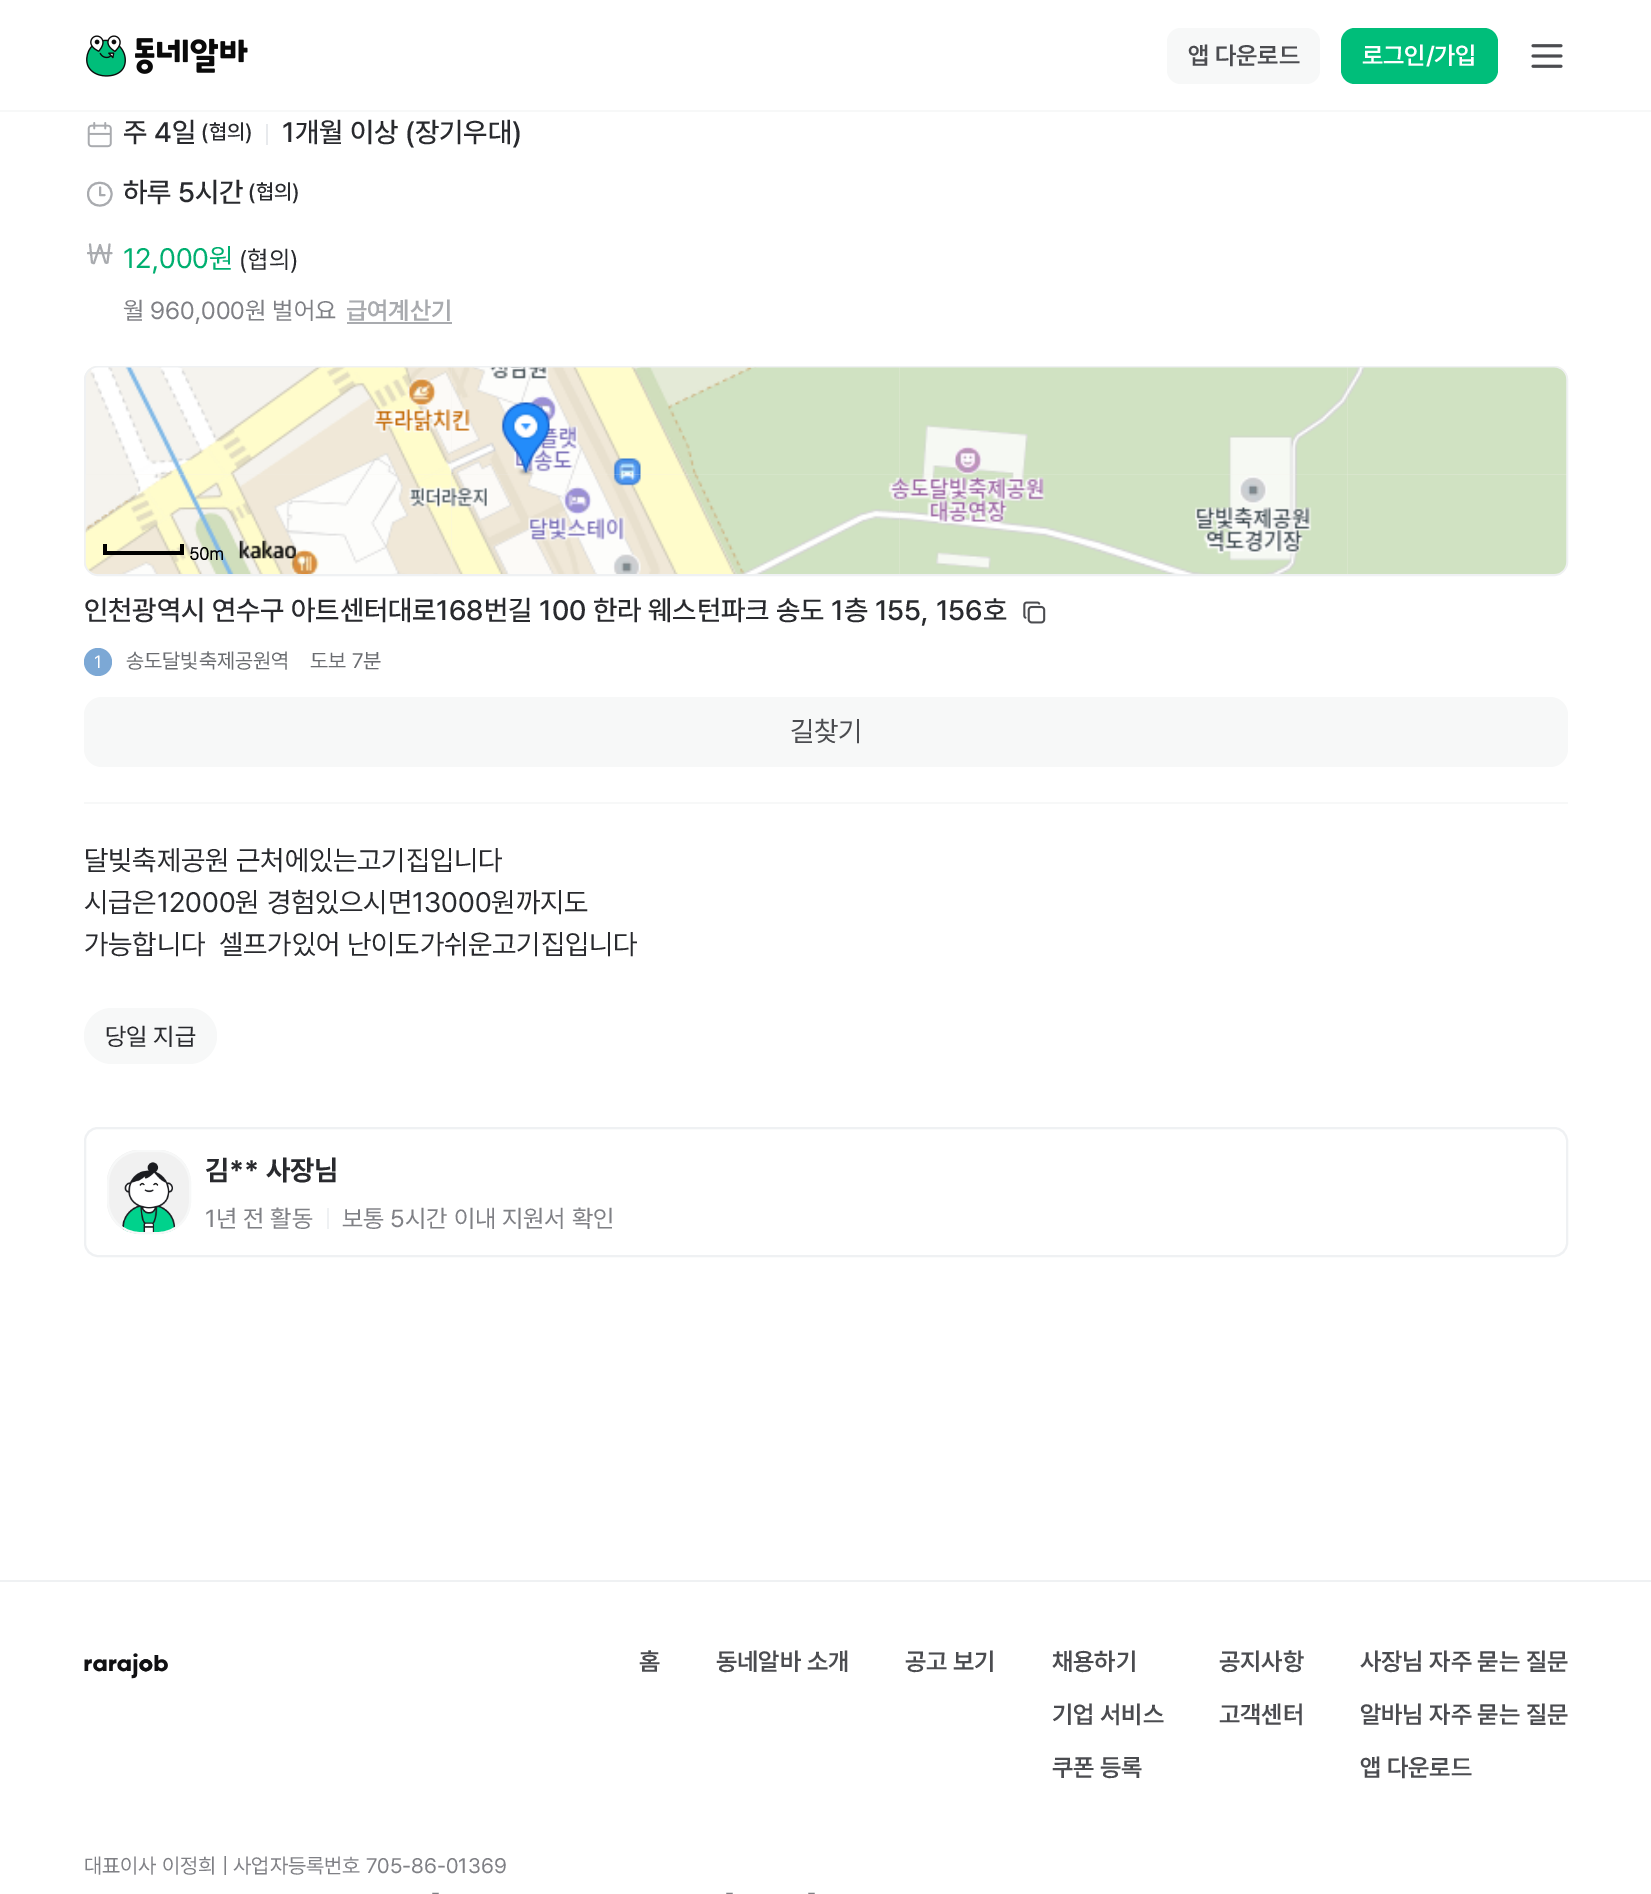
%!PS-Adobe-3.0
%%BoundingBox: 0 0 1651 1894
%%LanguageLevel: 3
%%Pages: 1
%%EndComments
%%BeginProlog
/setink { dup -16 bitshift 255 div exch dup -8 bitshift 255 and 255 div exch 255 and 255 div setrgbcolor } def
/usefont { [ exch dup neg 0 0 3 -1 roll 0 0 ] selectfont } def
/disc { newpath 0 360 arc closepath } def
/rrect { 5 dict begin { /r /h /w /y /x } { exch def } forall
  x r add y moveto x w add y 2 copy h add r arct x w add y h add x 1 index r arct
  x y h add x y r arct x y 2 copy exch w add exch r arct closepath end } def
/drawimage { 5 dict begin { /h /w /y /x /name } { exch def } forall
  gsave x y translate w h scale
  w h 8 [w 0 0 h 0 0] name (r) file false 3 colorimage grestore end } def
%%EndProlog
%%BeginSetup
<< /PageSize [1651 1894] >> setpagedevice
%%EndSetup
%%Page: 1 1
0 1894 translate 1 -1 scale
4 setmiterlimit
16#FFFFFF setink
0 0 1651 1894 rectfill
16#F7F8F8 setink
0 110 1651 2 rectfill
(img1.raw) 86 35 162 42 drawimage
1167 28 153 56 14 rrect fill
/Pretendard-SemiBold 24.5 usefont
16#4B4C50 setink
1188 64 moveto (앱 다운로드) show
16#00BE7A setink
1341 28 157 56 14 rrect fill
16#FFFFFF setink
1362 64 moveto (로그인/가입) show
(img2.raw) 1531 44 32 24 drawimage
(img3.raw) 87 122 25 26 drawimage
/Pretendard-Medium 28 usefont
16#292A2E setink
123 142 moveto (주 4일) show
/Pretendard-Medium 21 usefont
201 139 moveto (\(협의\)) show
16#E8EAED setink
266 124 2 21 rectfill
/Pretendard-Medium 28 usefont
16#292A2E setink
282 142 moveto (1개월 이상 \(장기우대\)) show
16#A9ABAF setink
2 setlinewidth
1 setlinecap
1 setlinejoin
104.5 195 moveto 100 195 lineto 100 187.5 lineto 88 194 moveto 88 209.5 111.5 209.5 111.5 194 curveto 111.5 179 88 179 88 194 curveto stroke
16#292A2E setink
123 202 moveto (하루 5시간) show
/Pretendard-Medium 21 usefont
248 199 moveto (\(협의\)) show
16#A9ABAF setink
90 244.5 moveto 92 262.5 lineto 93 263 lineto 94 263 lineto 100 245 lineto 105.5 262.5 lineto 106.5 263 lineto 107.5 262.5 lineto 109.5 244.5 lineto 111.5 253 moveto 88 253 lineto stroke
/Pretendard-Regular 28 usefont
16#00AF70 setink
123 268 moveto (12,000원) show
/Pretendard-Regular 24.5 usefont
16#292A2E setink
239 268 moveto (\(협의\)) show
16#7F8085 setink
123 319 moveto (월 960,000원 벌어요) show
gsave
347 294 105 32 rectclip
/Pretendard-SemiBold 24.5 usefont
16#A9ABAF setink
346 319 moveto (급여계산기) show
grestore
16#A9ABAF setink
347 322 105 2 rectfill
(img4.raw) 84 366 1484 210 drawimage
16#EFF1F3 setink
0 setlinecap
0 setlinejoin
85 367 1482 208 13 rrect stroke
(img9.raw) 85 474 367 100 drawimage
(img10.raw) 451 474 449 100 drawimage
(img5.raw) 86 367 366 108 drawimage
(img11.raw) 899 474 449 100 drawimage
(img6.raw) 451 367 449 108 drawimage
(img7.raw) 899 367 449 108 drawimage
(img8.raw) 1347 367 220 107 drawimage
(img12.raw) 1347 474 220 100 drawimage
(img13.raw) 501 402 49 74 drawimage
[
    [180 544 4 11 16#000000]
    [103 551 81 4 16#000000]
    [103 544 4 11 16#000000]
] { aload pop setink rectfill } forall
/Dotum-Bold 17.5 usefont
189 560 moveto (50m) show
(img14.raw) 239 540 57 19 drawimage
/Pretendard-Medium 28 usefont
16#292A2E setink
84 620 moveto (인천광역시 연수구 아트센터대로168번길 100 한라 웨스턴파크 송도 1층 155, 156호) show
(img15.raw) 1023 601 23 23 drawimage
16#7CA8D5 setink
98 662 14 disc fill
/Pretendard-Regular 17.5 usefont
16#FFFFFF setink
94 668 moveto (1) show
/Pretendard-Regular 21 usefont
16#6A6C70 setink
126 668 moveto (송도달빛축제공원역) show
310 668 moveto (도보 7분) show
16#F7F8F8 setink
84 697 1484 70 18 rrect fill
/Pretendard-Regular 28 usefont
16#4B4C50 setink
790 741 moveto (길찾기) show
16#F7F8F8 setink
84 802 1484 2 rectfill
16#292A2E setink
[
    [(달빚축제공원 근처에있는고기집입니다) 84 870]
    [(시급은12000원 경험있으시면13000원까지도) 84 912]
    [(가능합니다  셀프가있어 난이도가쉬운고기집입니다) 84 954]
] { aload pop moveto show } forall
16#F7F8F8 setink
84 1008 133 56 28 rrect fill
/Pretendard-Regular 24.5 usefont
16#292A2E setink
105 1045 moveto (당일 지급) show
16#EFF1F3 setink
85 1128 1482 128 13 rrect stroke
(img16.raw) 107 1150 84 84 drawimage
16#F7F8F8 setink
108 1151 82 82 32 rrect stroke
/Pretendard-Bold 28 usefont
16#292A2E setink
205 1180 moveto (김** 사장님) show
/Pretendard-Regular 24.5 usefont
16#7F8085 setink
205 1227 moveto (1년 전 활동) show
16#EFF1F3 setink
327 1208 2 21 rectfill
16#7F8085 setink
342 1227 moveto (보통 5시간 이내 지원서 확인) show
16#EFF1F3 setink
0 1580 1651 2 rectfill
(img17.raw) 84 1653 84 26 drawimage
/Pretendard-SemiBold 24.5 usefont
16#4B4C50 setink
[
    [(홈) 639 1670]
    [(동네알바 소개) 716 1670]
    [(공고 보기) 905 1670]
    [(채용하기) 1052 1670]
    [(기업 서비스) 1052 1723]
    [(쿠폰 등록) 1052 1776]
    [(공지사항) 1219 1670]
    [(고객센터) 1219 1723]
    [(사장님 자주 묻는 질문) 1360 1670]
    [(알바님 자주 묻는 질문) 1360 1723]
    [(앱 다운로드) 1360 1776]
] { aload pop moveto show } forall
/Pretendard-Regular 21 usefont
16#7F8085 setink
[
    [(대표이사 이정희 | 사업자등록번호 705-86-01369) 84 1873]
    [(-) 431 1900]
    [(-) 725 1900]
    [(-) 807 1900]
] { aload pop moveto show } forall
showpage
%%EOF
